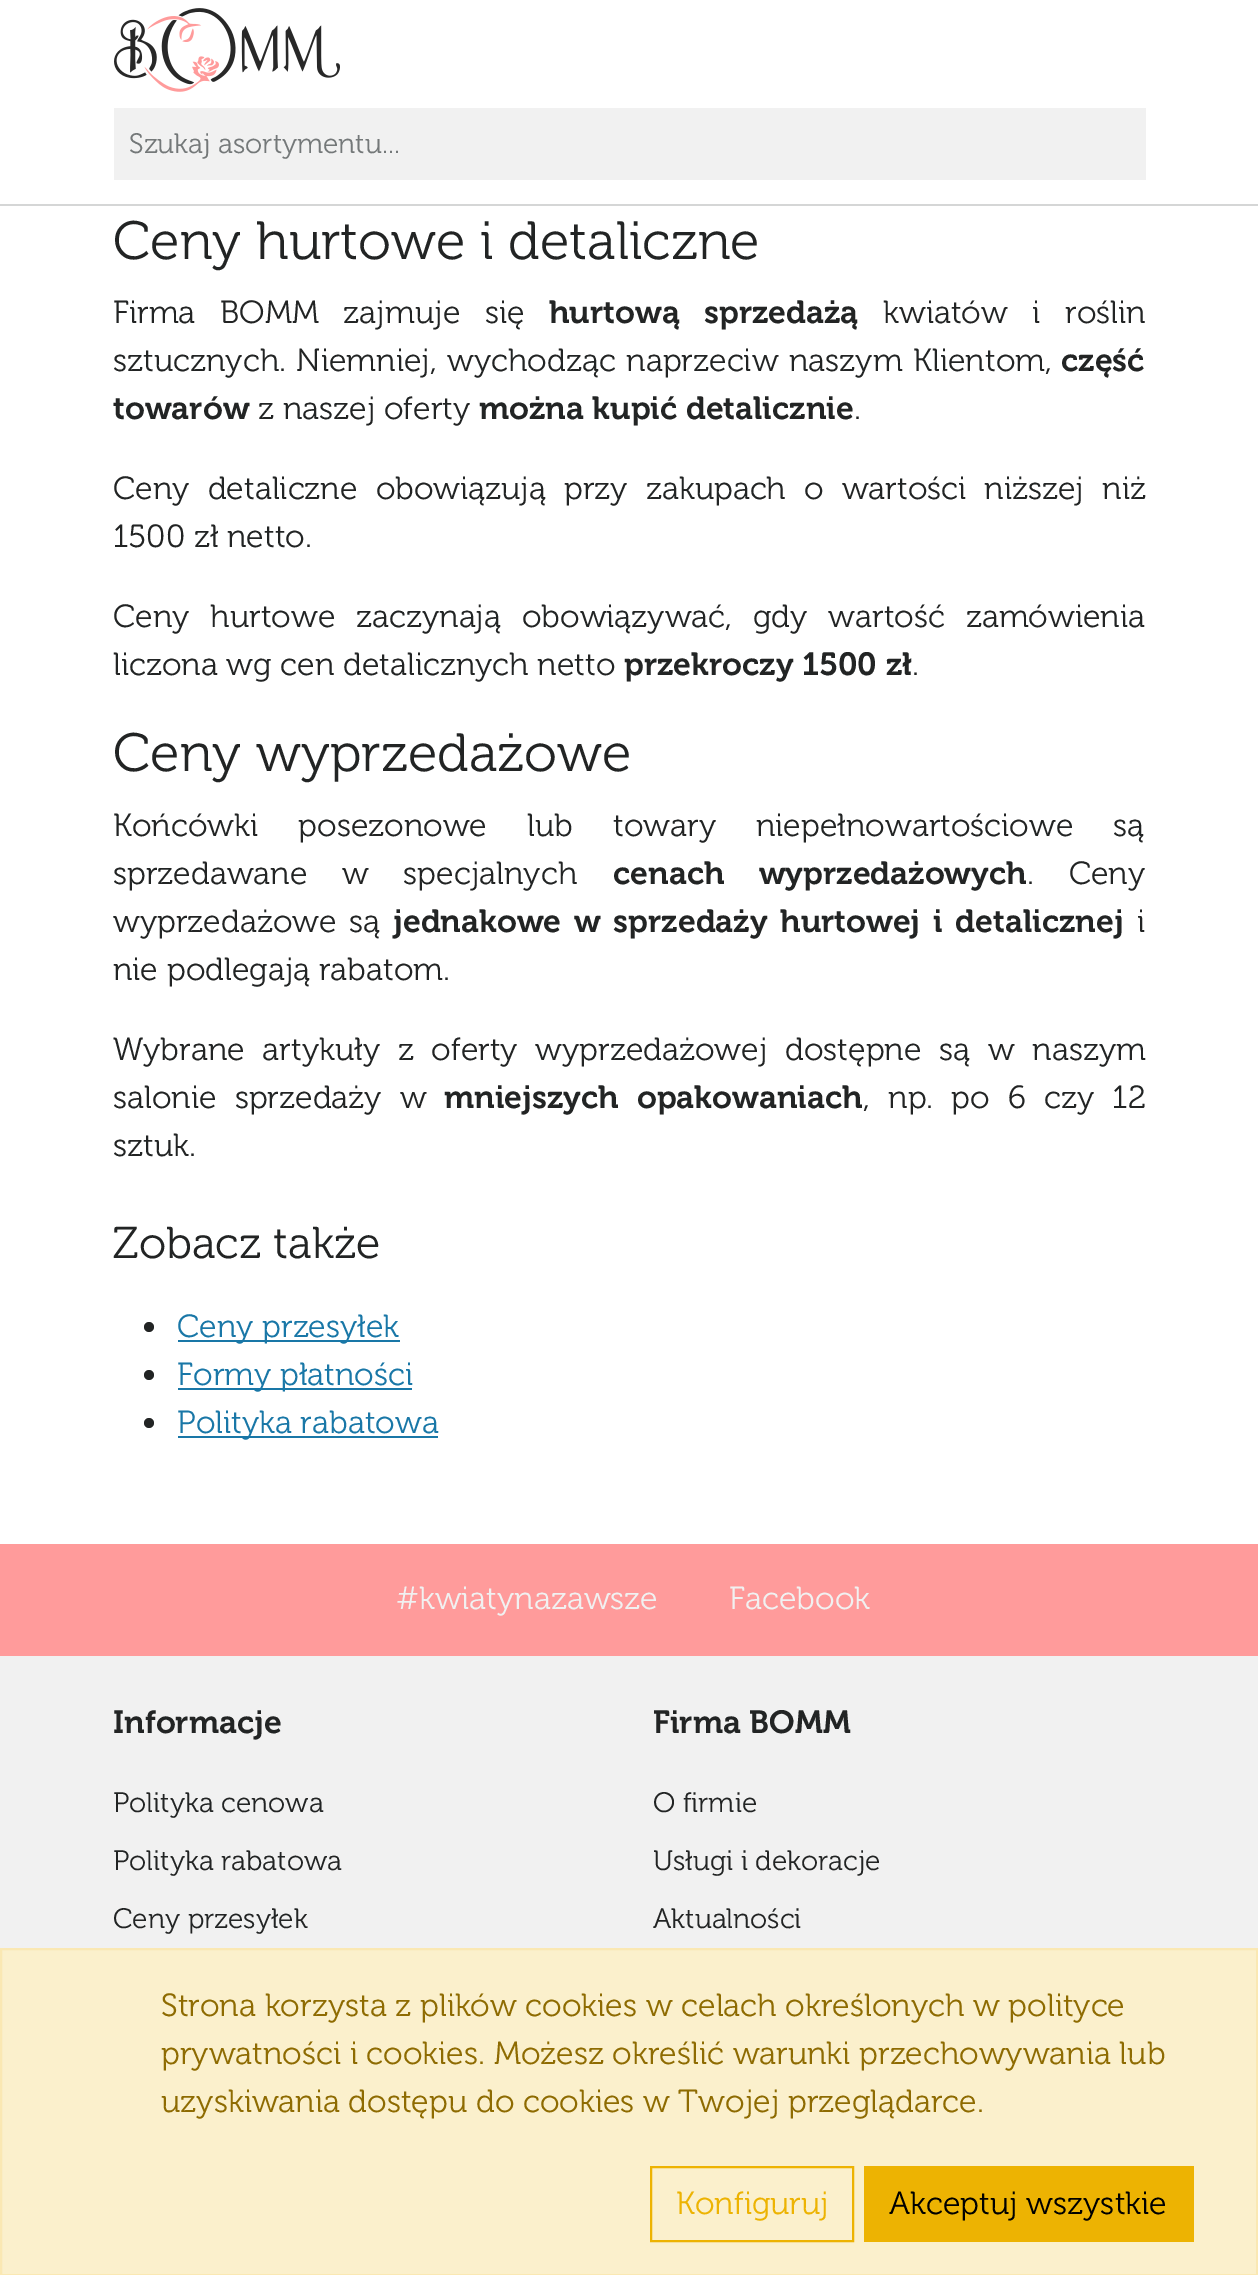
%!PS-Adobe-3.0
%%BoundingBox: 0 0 1258 2275
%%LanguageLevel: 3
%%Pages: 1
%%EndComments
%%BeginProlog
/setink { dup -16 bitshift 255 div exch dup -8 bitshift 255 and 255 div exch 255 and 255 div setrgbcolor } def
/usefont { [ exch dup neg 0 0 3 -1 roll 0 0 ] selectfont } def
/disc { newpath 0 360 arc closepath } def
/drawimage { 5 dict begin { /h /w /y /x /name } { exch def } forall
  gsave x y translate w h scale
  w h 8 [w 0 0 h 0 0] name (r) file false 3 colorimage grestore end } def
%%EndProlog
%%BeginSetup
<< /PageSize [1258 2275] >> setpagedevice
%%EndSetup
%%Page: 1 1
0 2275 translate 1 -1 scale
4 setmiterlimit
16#FFFFFF setink
0 0 1258 2275 rectfill
16#D5D6D6 setink
0 204 1258 2 rectfill
(img1.raw) 114 8 226 84 drawimage
16#F1F1F1 setink
114 108 1032 72 rectfill
/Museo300-Light 28 usefont
16#747879 setink
129 153 moveto (Szukaj asortymentu...) show
/Museo300-Light 53.75 usefont
16#222424 setink
113 259 moveto (Ceny hurtowe i detaliczne) show
/Museo300-Light 32 usefont
113 323 moveto 16 0 32 (Firma BOMM zajmuje się) widthshow
/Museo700-SemiBold 32 usefont
549 323 moveto 16 0 32 (hurtową sprzedażą) widthshow
/Museo300-Light 32 usefont
883 323 moveto 16 0 32 (kwiatów i roślin) widthshow
113 371 moveto 2 0 32 (sztucznych. Niemniej, wychodząc naprzeciw naszym Klientom,) widthshow
/Museo700-SemiBold 32 usefont
1061 371 moveto (część) show
113 419 moveto (towarów) show
/Museo300-Light 32 usefont
258 419 moveto (z naszej oferty) show
/Museo700-SemiBold 32 usefont
479 419 moveto (można kupić detalicznie) show
/Museo300-Light 32 usefont
854 419 moveto (.) show
113 499 moveto 9.5 0 32 (Ceny detaliczne obowiązują przy zakupach o wartości niższej niż) widthshow
113 547 moveto (1500 zł netto.) show
113 627 moveto 12.25 0 32 (Ceny hurtowe zaczynają obowiązywać, gdy wartość zamówienia) widthshow
113 675 moveto (liczona wg cen detalicznych netto) show
/Museo700-SemiBold 32 usefont
624 675 moveto (przekroczy 1500 zł) show
/Museo300-Light 32 usefont
912 675 moveto (.) show
/Museo300-Light 53.75 usefont
113 771 moveto (Ceny wyprzedażowe) show
/Museo300-Light 32 usefont
113 836 moveto 31.5 0 32 (Końcówki posezonowe lub towary niepełnowartościowe są) widthshow
113 884 moveto 26 0 32 (sprzedawane w specjalnych) widthshow
/Museo700-SemiBold 32 usefont
613 884 moveto 26 0 32 (cenach wyprzedażowych) widthshow
/Museo300-Light 32 usefont
1027 884 moveto 26 0 32 (. Ceny) widthshow
113 932 moveto 4.25 0 32 (wyprzedażowe są) widthshow
/Museo700-SemiBold 32 usefont
393 932 moveto 4.25 0 32 (jednakowe w sprzedaży hurtowej i detalicznej) widthshow
/Museo300-Light 32 usefont
1137 932 moveto (i) show
113 980 moveto (nie podlegają rabatom.) show
113 1060 moveto 9 0 32 (Wybrane artykuły z oferty wyprzedażowej dostępne są w naszym) widthshow
113 1108 moveto 9.5 0 32 (salonie sprzedaży w) widthshow
/Museo700-SemiBold 32 usefont
444 1108 moveto 9.5 0 32 (mniejszych opakowaniach) widthshow
/Museo300-Light 32 usefont
863 1108 moveto 9.5 0 32 (, np. po 6 czy 12) widthshow
113 1156 moveto (sztuk.) show
/Museo300-Light 44.5 usefont
113 1258 moveto (Zobacz także) show
149 1327 5 disc fill
16#1977A7 setink
178 1340 222 2 rectfill
/Museo300-Light 32 usefont
177 1337 moveto (Ceny przesyłek) show
16#222424 setink
149 1375 5 disc fill
16#1977A7 setink
178 1388 234 2 rectfill
177 1385 moveto (Formy płatności) show
16#222424 setink
149 1423 5 disc fill
16#1977A7 setink
178 1436 260 2 rectfill
177 1433 moveto (Polityka rabatowa) show
16#FF9B9B setink
0 1544 1258 112 rectfill
16#F1F1F1 setink
396 1609 moveto (#kwiatynazawsze) show
729 1609 moveto (Facebook) show
0 1656 1258 292 rectfill
/Museo700-SemiBold 32 usefont
16#222424 setink
113 1733 moveto (Informacje) show
/Museo300-Light 28 usefont
[
    [(Polityka cenowa) 113 1812]
    [(Polityka rabatowa) 113 1870]
    [(Ceny przesyłek) 113 1928]
] { aload pop moveto show } forall
/Museo700-SemiBold 32 usefont
653 1733 moveto (Firma BOMM) show
/Museo300-Light 28 usefont
[
    [(O firmie) 653 1812]
    [(Usługi i dekoracje) 653 1870]
    [(Aktualności) 653 1928]
] { aload pop moveto show } forall
16#FBF0CC setink
1 1949 moveto 1257 1949 lineto 1257 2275 lineto 1 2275 lineto closepath gsave fill grestore
16#FAE8B3 setink
2 setlinewidth
stroke
/Museo300-Light 32 usefont
16#8E6B01 setink
[
    [(Strona korzysta z plików cookies w celach określonych w polityce) 161 2016]
    [(prywatności i cookies. Możesz określić warunki przechowywania lub) 161 2064]
    [(uzyskiwania dostępu do cookies w Twojej przeglądarce.) 161 2112]
] { aload pop moveto show } forall
16#EDB302 setink
651 2167 202 74 rectstroke
676 2214 moveto (Konfiguruj) show
864 2166 330 76 rectfill
16#000000 setink
889 2214 moveto (Akceptuj wszystkie) show
showpage
%%EOF
